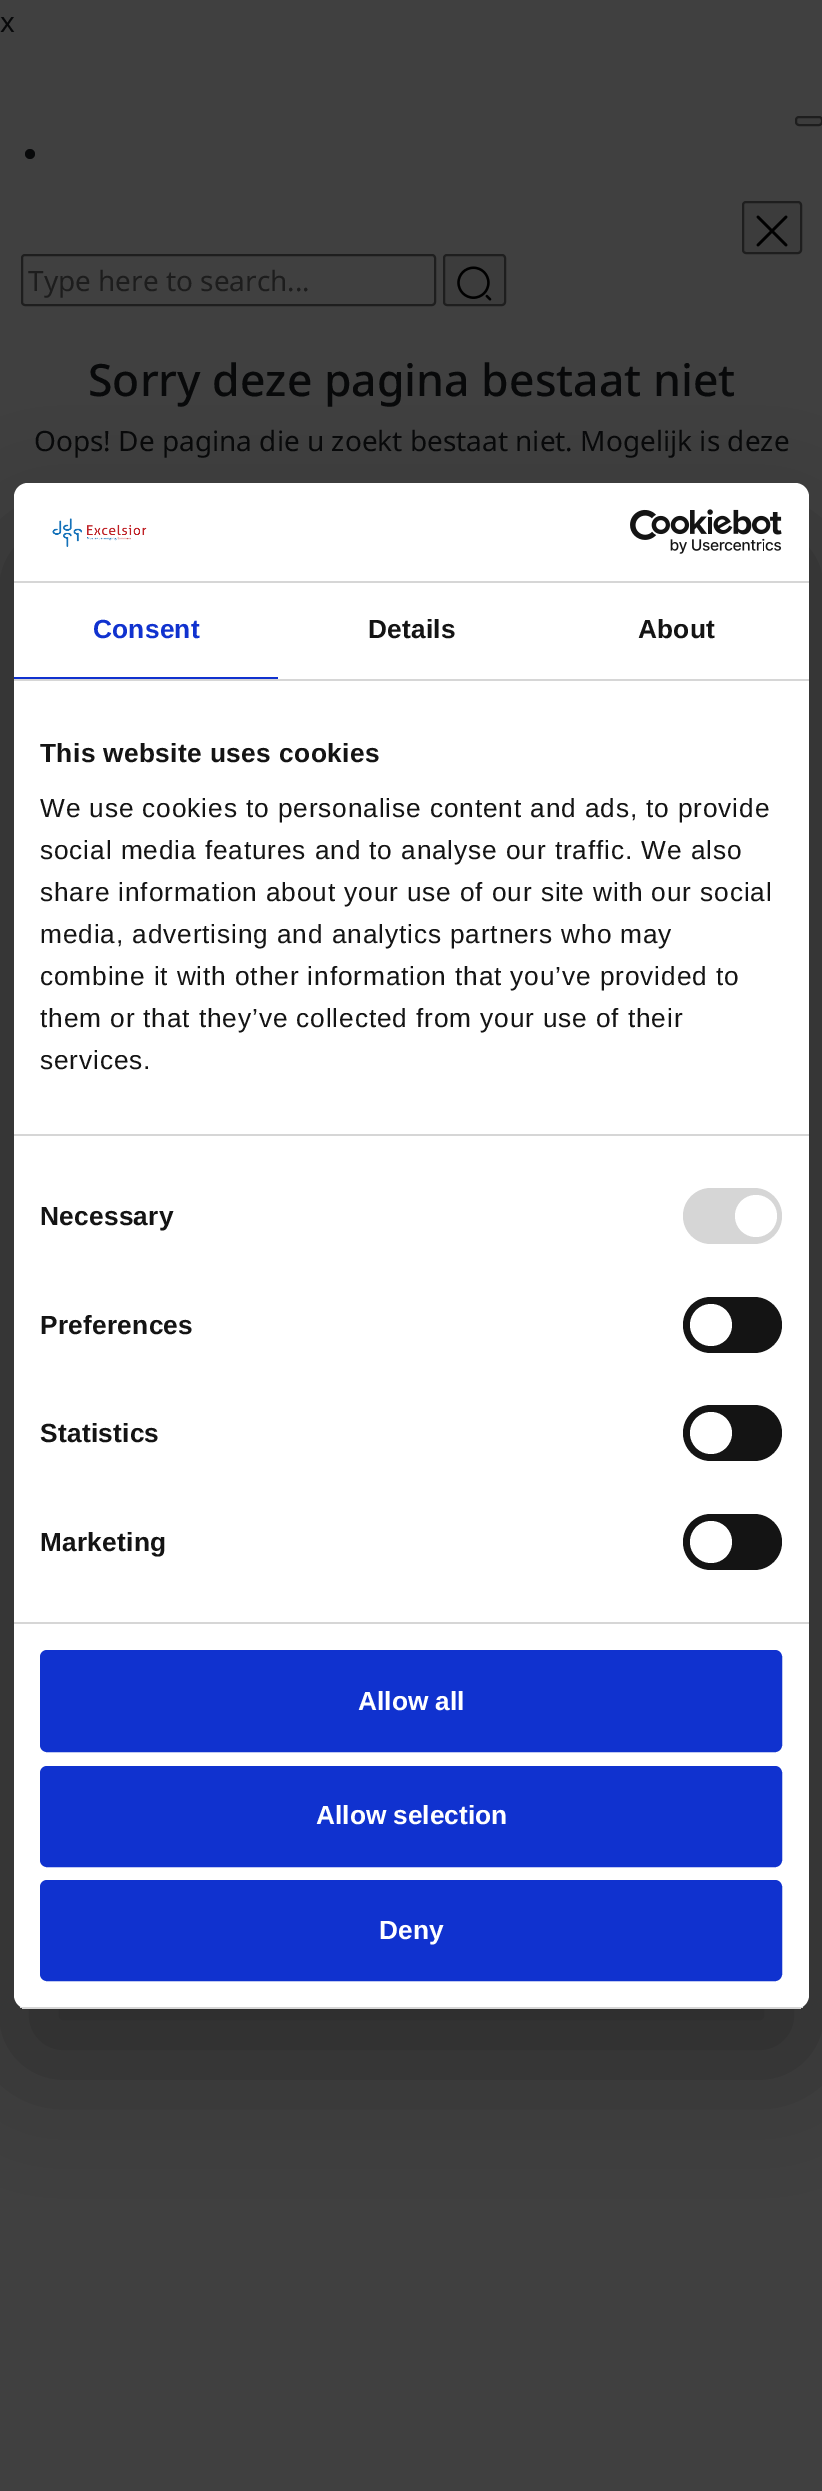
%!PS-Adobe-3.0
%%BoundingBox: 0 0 822 2491
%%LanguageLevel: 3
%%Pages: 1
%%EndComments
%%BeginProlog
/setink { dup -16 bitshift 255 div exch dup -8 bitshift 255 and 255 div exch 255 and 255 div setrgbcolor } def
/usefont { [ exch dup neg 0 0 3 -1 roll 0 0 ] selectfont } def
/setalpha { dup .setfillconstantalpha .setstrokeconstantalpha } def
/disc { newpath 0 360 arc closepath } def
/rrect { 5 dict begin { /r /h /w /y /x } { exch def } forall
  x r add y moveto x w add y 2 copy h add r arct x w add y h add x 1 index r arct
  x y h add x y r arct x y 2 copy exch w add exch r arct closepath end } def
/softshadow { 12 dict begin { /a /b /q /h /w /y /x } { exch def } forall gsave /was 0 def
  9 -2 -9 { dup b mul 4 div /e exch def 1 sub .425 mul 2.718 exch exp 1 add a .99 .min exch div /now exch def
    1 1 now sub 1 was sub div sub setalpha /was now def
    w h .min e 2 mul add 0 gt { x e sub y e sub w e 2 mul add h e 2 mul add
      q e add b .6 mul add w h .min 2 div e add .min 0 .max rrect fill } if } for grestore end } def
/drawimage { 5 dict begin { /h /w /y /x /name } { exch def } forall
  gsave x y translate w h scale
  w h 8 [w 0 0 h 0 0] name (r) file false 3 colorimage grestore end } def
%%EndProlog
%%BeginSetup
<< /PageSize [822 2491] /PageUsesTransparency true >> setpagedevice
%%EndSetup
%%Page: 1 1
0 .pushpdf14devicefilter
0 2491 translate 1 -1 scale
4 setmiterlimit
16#404040 setink
0 0 822 2491 rectfill
/NotoSans-Regular 28 usefont
16#08090A setink
0 32 moveto (x) show
16#3C3C3C setink
796 117 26 8 3 rrect gsave fill grestore
16#1E1E1E setink
2 setlinewidth
stroke
16#08090A setink
30 154 5 disc fill
16#3C3C3C setink
743 202 58 51 3 rrect gsave fill grestore
16#1E1E1E setink
stroke
16#000000 setink
2.6 setlinewidth
1 setlinecap
1 setlinejoin
786 217 moveto 758 245 lineto 758 217 moveto 786 245 lineto stroke
16#1E1E1E setink
2 setlinewidth
0 setlinecap
0 setlinejoin
22 255 413 50 3 rrect stroke
16#1D1D1D setink
28 291 moveto (Type here to search...) show
16#3C3C3C setink
444 255 61 50 3 rrect gsave fill grestore
16#1E1E1E setink
stroke
(img1.raw) 457 266 35 35 drawimage
/NotoSans-Medium 44.5 usefont
16#08090A setink
88 396 moveto (Sorry deze pagina bestaat niet) show
/NotoSans-Regular 28 usefont
34 451 moveto (Oops! De pagina die u zoekt bestaat niet. Mogelijk is deze) show
16#000000 setink
14 539 795 1526 14 59.5 0.3 softshadow
16#FFFFFF setink
14 483 795 1526 14 rrect fill
16#D6D6D6 setink
14 581 795 2 rectfill
(img2.raw) 52 518 95 29 drawimage
(img3.raw) 630 509 152 45 drawimage
14 679 795 2 rectfill
16#1032CF setink
14 677 264 2 rectfill
/LiberationSans-Bold 26.25 usefont
93 638 moveto 0.25 0 (Consent) ashow
16#141414 setink
368 638 moveto 0.25 0 (Details) ashow
638 638 moveto 0.25 0 (About) ashow
16#D6D6D6 setink
14 1134 795 2 rectfill
16#141414 setink
40 762 moveto 0.4 0 (This website uses cookies) ashow
/LiberationSans-Regular 26.25 usefont
40 817 moveto 0.88 0 (We use cookies to personalise content and ads, to provide) ashow
40 859 moveto 0.88 0 (social media features and to analyse our traffic. We also) ashow
40 901 moveto 0.88 0 (share information about your use of our site with our social) ashow
40 943 moveto 0.88 0 (media, advertising and analytics partners who may) ashow
40 985 moveto 0.88 0 (combine it with other information that you’ve provided to) ashow
40 1027 moveto 0.88 0 (them or that they’ve collected from your use of their) ashow
40 1069 moveto 0.88 0 (services.) ashow
16#D6D6D6 setink
14 1622 795 2 rectfill
/LiberationSans-Bold 26.25 usefont
16#141414 setink
40 1225 moveto 0.25 0 (Necessary) ashow
16#D6D6D6 setink
683 1188 99 56 28 rrect fill
16#FFFFFF setink
756 1216 21 disc fill
16#141414 setink
40 1334 moveto 0.25 0 (Preferences) ashow
683 1297 99 56 28 rrect fill
16#FFFFFF setink
711 1325 21 disc fill
16#141414 setink
40 1442 moveto 0.25 0 (Statistics) ashow
683 1405 99 56 28 rrect fill
16#FFFFFF setink
711 1433 21 disc fill
16#141414 setink
40 1551 moveto 0.25 0 (Marketing) ashow
683 1514 99 56 28 rrect fill
16#FFFFFF setink
711 1542 21 disc fill
gsave
14 483 795 1526 14 rrect clip newpath
16#D6D6D6 setink
14 2007 795 2 rectfill
grestore
16#1032CF setink
42 1652 738 98 5 rrect gsave fill grestore
4 setlinewidth
stroke
16#FFFFFF setink
358 1710 moveto (Allow all) show
16#1032CF setink
42 1768 738 97 5 rrect gsave fill grestore
stroke
16#FFFFFF setink
316 1824 moveto (Allow selection) show
16#1032CF setink
42 1882 738 97 5 rrect gsave fill grestore
stroke
16#FFFFFF setink
379 1939 moveto (Deny) show
.poppdf14devicefilter showpage
%%EOF
